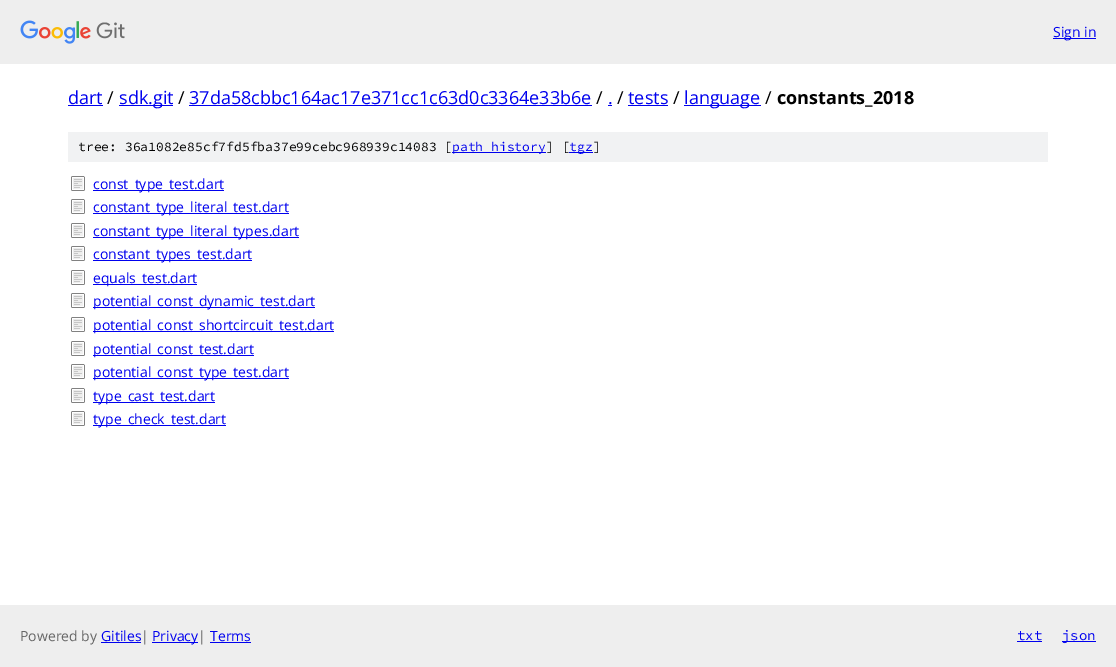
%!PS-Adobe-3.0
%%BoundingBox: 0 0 1116 667
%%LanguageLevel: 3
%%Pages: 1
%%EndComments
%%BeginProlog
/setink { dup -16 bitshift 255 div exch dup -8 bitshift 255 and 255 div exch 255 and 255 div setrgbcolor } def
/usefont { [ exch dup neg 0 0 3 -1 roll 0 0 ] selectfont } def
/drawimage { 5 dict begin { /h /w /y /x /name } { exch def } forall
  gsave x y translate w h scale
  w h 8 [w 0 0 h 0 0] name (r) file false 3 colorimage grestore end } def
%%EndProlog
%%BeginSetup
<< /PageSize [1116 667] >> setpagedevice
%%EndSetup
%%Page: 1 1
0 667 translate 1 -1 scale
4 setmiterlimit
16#FFFFFF setink
0 0 1116 667 rectfill
16#EEEEEE setink
0 0 1116 64 rectfill
(img1.raw) 20 20 105 24 drawimage
16#0000EE setink
1053 38 43 1 rectfill
/OpenSans-Regular 14 usefont
1053 37 moveto (Sign in) show
/OpenSans-Regular 18 usefont
68 104 moveto (dart) show
68 105 35 1 rectfill
16#000000 setink
107 104 moveto (/) show
16#0000EE setink
119 105 54 1 rectfill
119 104 moveto (sdk.git) show
16#000000 setink
178 104 moveto (/) show
16#0000EE setink
189 104 moveto (37da58cbbc164ac17e371cc1c63d0c3364e33b6e) show
189 105 403 1 rectfill
16#000000 setink
596 104 moveto (/) show
16#0000EE setink
608 104 moveto (.) show
608 105 4 1 rectfill
16#000000 setink
617 104 moveto (/) show
16#0000EE setink
628 104 moveto (tests) show
628 105 40 1 rectfill
16#000000 setink
673 104 moveto (/) show
16#0000EE setink
684 105 77 1 rectfill
684 104 moveto (language) show
16#000000 setink
765 104 moveto (/) show
/OpenSans-Bold 18 usefont
777 104 moveto (constants_2018) show
16#F1F2F3 setink
68 132 980 30 rectfill
/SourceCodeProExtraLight-ExtraLight 13 usefont
16#000000 setink
78 151 moveto (tree: 36a1082e85cf7fd5fba37e99cebc968939c14083 [) show
16#0000EE setink
452 152 94 1 rectfill
452 151 moveto (path history) show
16#000000 setink
546 151 moveto (] [) show
16#0000EE setink
569 152 24 1 rectfill
569 151 moveto (tgz) show
16#000000 setink
593 151 moveto (]) show
(img2.raw) 71 176 14 15 drawimage
16#0000EE setink
93 190 131 1 rectfill
/OpenSans-Regular 14 usefont
93 189 moveto (const_type_test.dart) show
(img2.raw) 71 199 14 15 drawimage
93 213 196 1 rectfill
93 212 moveto (constant_type_literal_test.dart) show
(img2.raw) 71 223 14 15 drawimage
93 237 206 1 rectfill
93 236 moveto (constant_type_literal_types.dart) show
(img2.raw) 71 246 14 15 drawimage
93 260 159 1 rectfill
93 259 moveto (constant_types_test.dart) show
(img2.raw) 71 270 14 15 drawimage
93 284 104 1 rectfill
93 283 moveto (equals_test.dart) show
(img2.raw) 71 293 14 15 drawimage
93 307 222 1 rectfill
93 306 moveto (potential_const_dynamic_test.dart) show
(img2.raw) 71 317 14 15 drawimage
93 331 241 1 rectfill
93 330 moveto (potential_const_shortcircuit_test.dart) show
(img2.raw) 71 341 14 15 drawimage
93 355 161 1 rectfill
93 354 moveto (potential_const_test.dart) show
(img2.raw) 71 364 14 15 drawimage
93 378 196 1 rectfill
93 377 moveto (potential_const_type_test.dart) show
(img2.raw) 71 388 14 15 drawimage
93 402 122 1 rectfill
93 401 moveto (type_cast_test.dart) show
(img2.raw) 71 411 14 15 drawimage
93 425 133 1 rectfill
93 424 moveto (type_check_test.dart) show
16#EEEEEE setink
0 605 1116 62 rectfill
16#666666 setink
20 641 moveto (Powered by) show
16#0000EE setink
101 641 moveto (Gitiles) show
101 642 40 1 rectfill
16#666666 setink
141 641 moveto (|) show
16#0000EE setink
152 642 46 1 rectfill
152 641 moveto (Privacy) show
16#666666 setink
198 641 moveto (|) show
16#0000EE setink
210 641 moveto (Terms) show
210 642 41 1 rectfill
/SourceCodeProExtraLight-ExtraLight 14 usefont
1017 640 moveto (txt) show
1017 641 25 1 rectfill
1062 641 34 1 rectfill
1062 640 moveto (json) show
showpage
%%EOF
